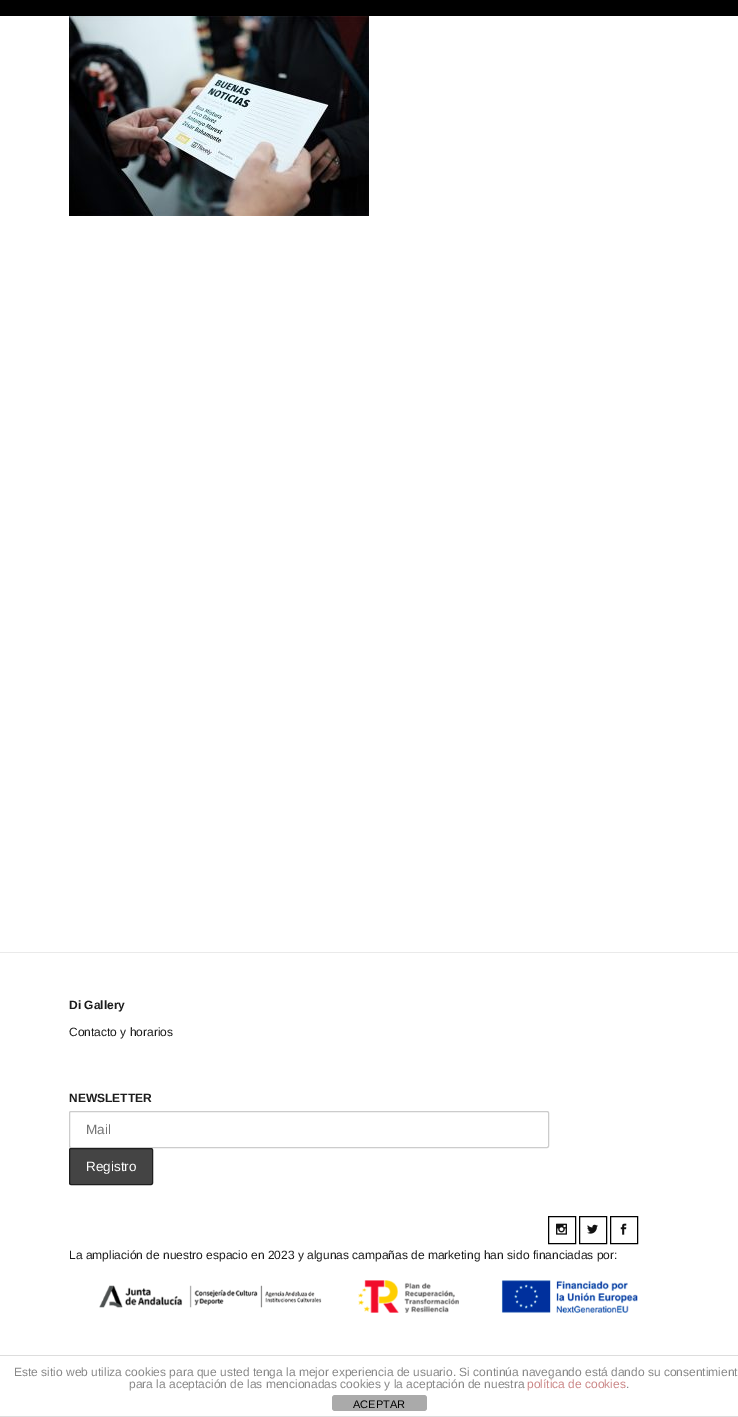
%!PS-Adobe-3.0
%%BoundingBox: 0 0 738 1417
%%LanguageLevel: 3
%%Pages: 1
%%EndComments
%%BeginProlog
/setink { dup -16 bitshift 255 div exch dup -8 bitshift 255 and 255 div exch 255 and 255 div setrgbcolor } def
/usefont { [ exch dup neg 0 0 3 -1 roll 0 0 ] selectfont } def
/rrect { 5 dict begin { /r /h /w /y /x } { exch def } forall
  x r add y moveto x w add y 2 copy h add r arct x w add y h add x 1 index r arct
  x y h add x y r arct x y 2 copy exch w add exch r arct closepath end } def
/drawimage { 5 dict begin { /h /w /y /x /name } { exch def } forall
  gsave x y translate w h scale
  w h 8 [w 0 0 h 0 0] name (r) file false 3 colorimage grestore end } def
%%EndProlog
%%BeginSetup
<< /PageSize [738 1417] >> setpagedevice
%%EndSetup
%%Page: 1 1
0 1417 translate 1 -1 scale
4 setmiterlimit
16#FFFFFF setink
0 0 738 1417 rectfill
16#000000 setink
0 0 738 16 rectfill
(img1.raw) 69 16 300 200 drawimage
16#EAEAEA setink
0 952 738 1 rectfill
/LiberationSans-Bold 12 usefont
16#1C1C1C setink
69 1009 moveto (Di Gallery) show
/LiberationSans-Regular 12 usefont
69 1036 moveto (Contacto y horarios) show
/LiberationSans-Bold 12 usefont
69 1102 moveto (NEWSLETTER) show
16#CCCCCC setink
69.5 1111.5 479 36 1.5 rrect stroke
/LiberationSans-Regular 13.5 usefont
16#757575 setink
86 1134 moveto (Mail) show
16#444444 setink
69.5 1148.5 83 36 1.5 rrect gsave fill grestore
16#1E1E1E setink
stroke
16#FFFFFF setink
86 1171 moveto (Registro) show
16#000000 setink
548.5 1216.5 27 27 rectstroke
(img2.raw) 556 1223 11 12 drawimage
579.5 1216.5 27 27 rectstroke
(img3.raw) 587 1224 11 10 drawimage
610.5 1216.5 27 27 rectstroke
(img4.raw) 620 1223 7 12 drawimage
/LiberationSans-Regular 12 usefont
16#1C1C1C setink
69 1259 moveto (La ampliación de nuestro espacio en 2023 y algunas campañas de marketing han sido financiadas por:) show
(img5.raw) 99 1280 539 33 drawimage
16#DDDDDD setink
0 1355 738 1 rectfill
0 1416 738 1 rectfill
16#888888 setink
14 1376 moveto (Este sitio web utiliza cookies para que usted tenga la mejor experiencia de usuario. Si continúa navegando está dando su consentimient) show
129 1388 moveto (para la aceptación de las mencionadas cookies y la aceptación de nuestra) show
16#CC8888 setink
527 1388 moveto (política de cookies) show
16#888888 setink
626 1388 moveto (.) show
16#AAAAAA setink
332 1395 95 16 3 rrect fill
/LiberationSans-Regular 11 usefont
16#000000 setink
353 1408 moveto (ACEPTAR) show
showpage
%%EOF
